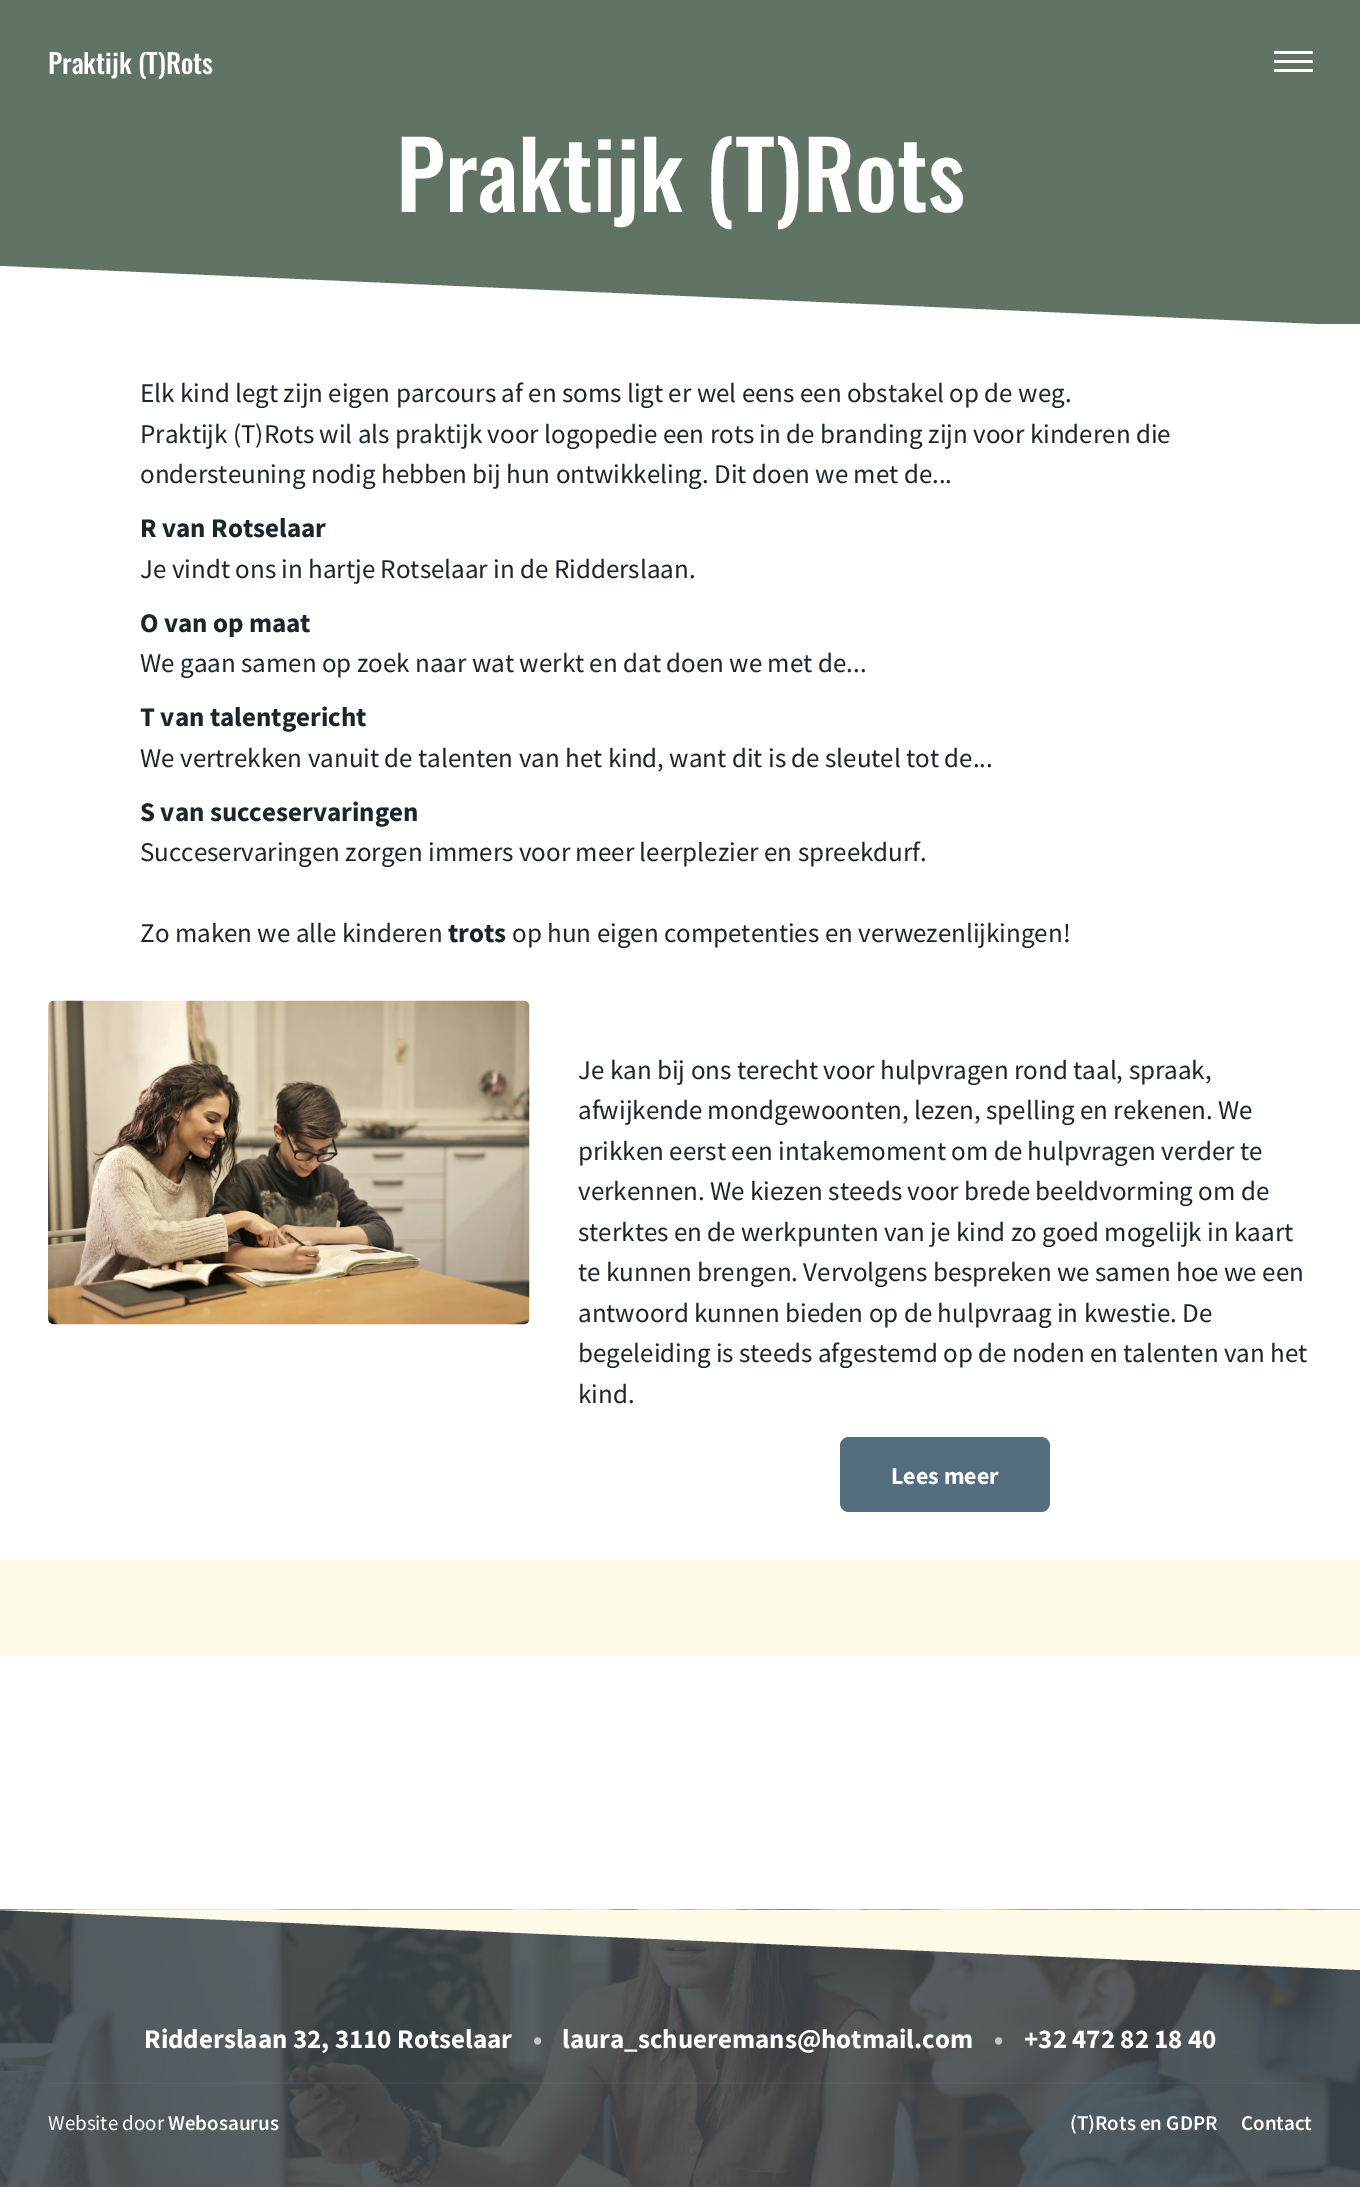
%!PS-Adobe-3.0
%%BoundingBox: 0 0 1360 2187
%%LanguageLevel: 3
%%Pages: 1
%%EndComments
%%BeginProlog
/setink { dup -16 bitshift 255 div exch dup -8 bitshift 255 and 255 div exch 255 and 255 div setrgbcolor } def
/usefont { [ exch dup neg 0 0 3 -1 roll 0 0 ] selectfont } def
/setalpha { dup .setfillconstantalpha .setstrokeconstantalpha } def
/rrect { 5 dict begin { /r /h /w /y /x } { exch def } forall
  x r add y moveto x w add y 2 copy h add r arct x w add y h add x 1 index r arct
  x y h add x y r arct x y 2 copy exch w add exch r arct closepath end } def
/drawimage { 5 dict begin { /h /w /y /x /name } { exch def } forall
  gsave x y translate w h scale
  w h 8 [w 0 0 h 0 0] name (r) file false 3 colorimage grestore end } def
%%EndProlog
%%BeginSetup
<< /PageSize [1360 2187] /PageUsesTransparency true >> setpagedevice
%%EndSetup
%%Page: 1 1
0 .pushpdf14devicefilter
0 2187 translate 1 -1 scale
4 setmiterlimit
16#FFFFFF setink
0 0 1360 2187 rectfill
16#607364 setink
0 0 1360 324 rectfill
/Oswald-Medium 27 usefont
16#FFFFFF setink
48 74 moveto (Praktijk \(T\)Rots) show
[
    [1274 51 39 3 16#FFFFFF]
    [1274 60 39 3 16#FFFFFF]
    [1274 69 39 3 16#FFFFFF]
] { aload pop setink rectfill } forall
/Oswald-Medium 93 usefont
396 212 moveto (Praktijk \(T\)Rots) show
gsave
0 266 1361 58 rectclip
1360 326 moveto 0 326 lineto 0 266 lineto closepath fill
grestore
/SourceSansPro-Regular 27 usefont
16#1B262C setink
[
    [(Elk kind legt zijn eigen parcours af en soms ligt er wel eens een obstakel op de weg.) 140 402]
    [(Praktijk \(T\)Rots wil als praktijk voor logopedie een rots in de branding zijn voor kinderen die) 140 443]
    [(ondersteuning nodig hebben bij hun ontwikkeling. Dit doen we met de...) 140 483]
] { aload pop moveto show } forall
/SourceSansPro-Bold 27 usefont
140 537 moveto (R van Rotselaar) show
/SourceSansPro-Regular 27 usefont
140 578 moveto (Je vindt ons in hartje Rotselaar in de Ridderslaan.) show
/SourceSansPro-Bold 27 usefont
140 632 moveto (O van op maat) show
/SourceSansPro-Regular 27 usefont
140 672 moveto (We gaan samen op zoek naar wat werkt en dat doen we met de...) show
/SourceSansPro-Bold 27 usefont
140 726 moveto (T van talentgericht) show
/SourceSansPro-Regular 27 usefont
140 767 moveto (We vertrekken vanuit de talenten van het kind, want dit is de sleutel tot de...) show
/SourceSansPro-Bold 27 usefont
140 821 moveto (S van succeservaringen) show
/SourceSansPro-Regular 27 usefont
140 861 moveto (Succeservaringen zorgen immers voor meer leerplezier en spreekdurf.) show
140 942 moveto (Zo maken we alle kinderen) show
/SourceSansPro-Bold 27 usefont
448 942 moveto (trots) show
/SourceSansPro-Regular 27 usefont
512 942 moveto (op hun eigen competenties en verwezenlijkingen!) show
(img1.raw) 48 1000 482 325 drawimage
[
    [(Je kan bij ons terecht voor hulpvragen rond taal, spraak,) 578 1079]
    [(afwijkende mondgewoonten, lezen, spelling en rekenen. We) 578 1119]
    [(prikken eerst een intakemoment om de hulpvragen verder te) 578 1160]
    [(verkennen. We kiezen steeds voor brede beeldvorming om de) 578 1200]
    [(sterktes en de werkpunten van je kind zo goed mogelijk in kaart) 578 1241]
    [(te kunnen brengen. Vervolgens bespreken we samen hoe we een) 578 1281]
    [(antwoord kunnen bieden op de hulpvraag in kwestie. De) 578 1322]
    [(begeleiding is steeds afgestemd op de noden en talenten van het) 578 1362]
    [(kind.) 578 1403]
] { aload pop moveto show } forall
16#546E7F setink
840 1437 210 75 9 rrect fill
/SourceSansPro-Bold 24 usefont
16#FFFFFF setink
891 1484 moveto (Lees meer) show
16#FEFBE9 setink
0 1560 1360 96 rectfill
(img2.raw) 0 1909 1360 278 drawimage
0 1910 moveto 1360 1910 lineto 1360 1970 lineto closepath fill
/SourceSansPro-Bold 27 usefont
16#FFFFFF setink
144 2048 moveto (Ridderslaan 32, 3110 Rotselaar) show
16#C3C6C7 setink
533 2048 moveto (•) show
16#FFFFFF setink
562 2048 moveto (laura_schueremans@hotmail.com) show
16#C3C6C7 setink
994 2048 moveto (•) show
16#FFFFFF setink
1024 2048 moveto (+32 472 82 18 40) show
0.1 setalpha
16#808080 setink
48 2082 1265 2 rectfill
/SourceSansPro-Regular 21 usefont
1 setalpha
16#FFFFFF setink
48 2130 moveto (Website door) show
/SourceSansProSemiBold-SemiBold 21 usefont
[
    [(Webosaurus) 168 2130]
    [(\(T\)Rots en GDPR) 1070 2130]
    [(Contact) 1241 2130]
] { aload pop moveto show } forall
.poppdf14devicefilter showpage
%%EOF
